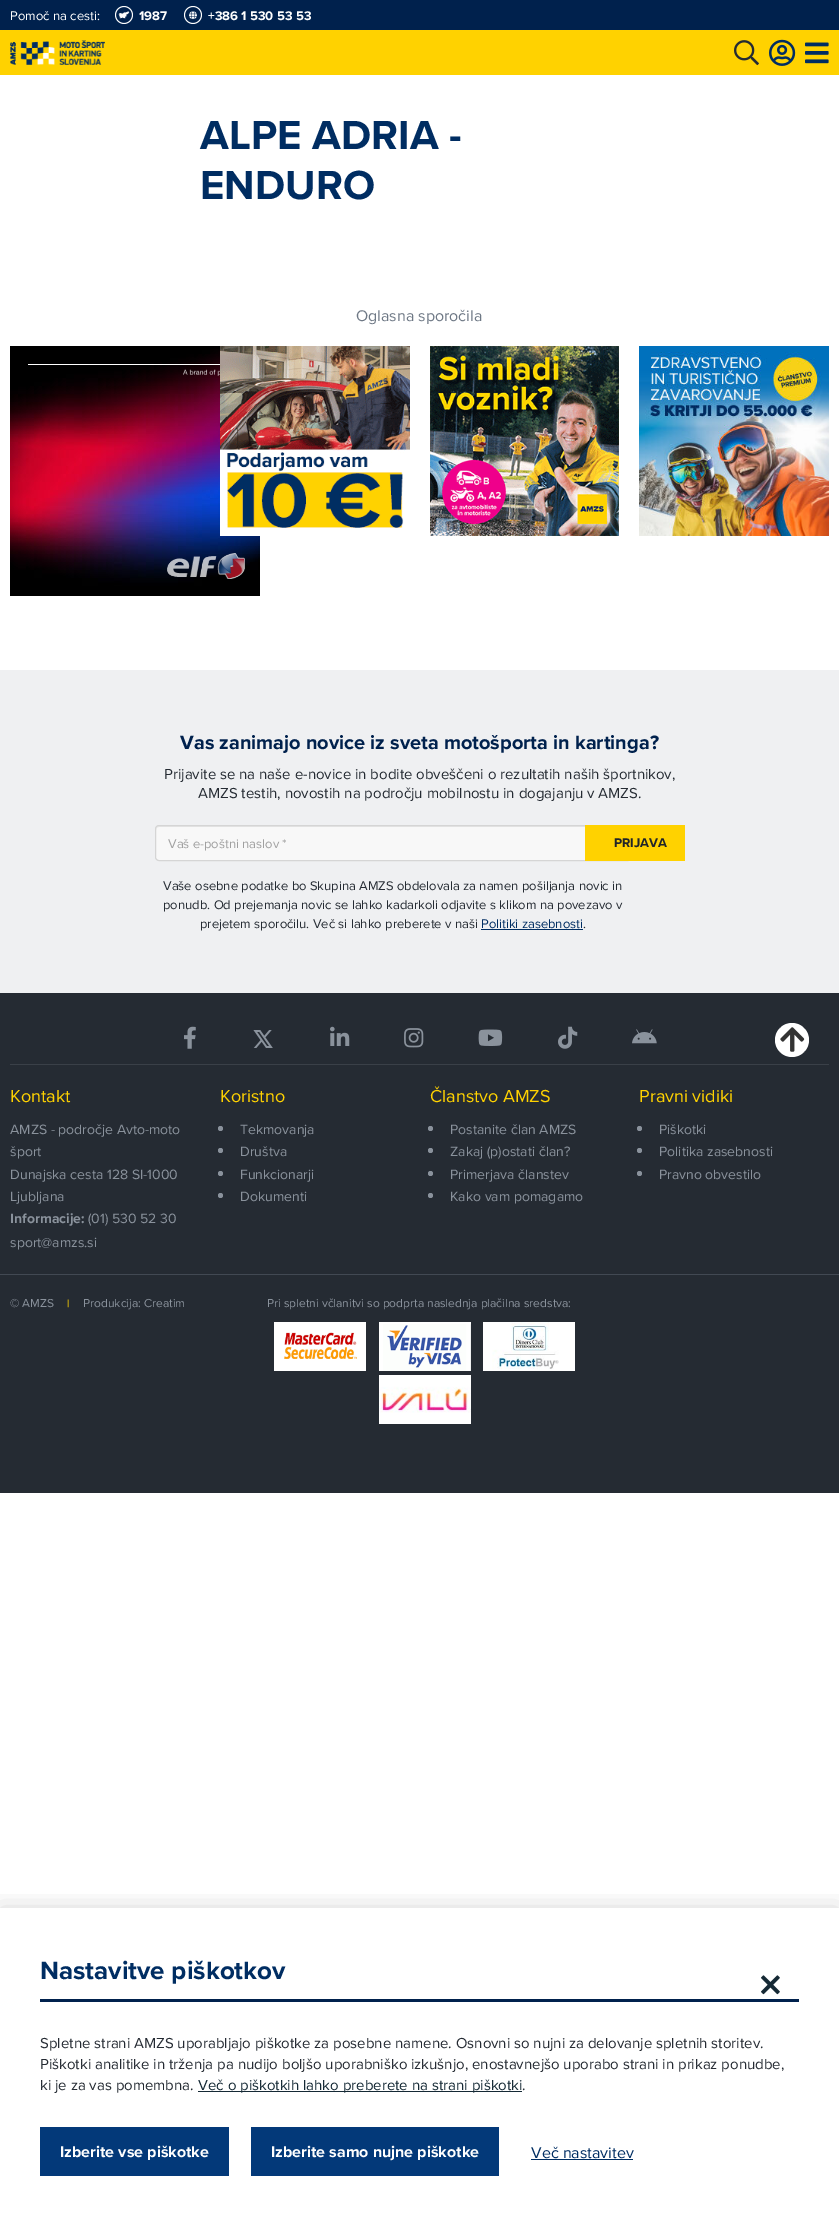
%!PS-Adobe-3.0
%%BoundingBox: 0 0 839 2216
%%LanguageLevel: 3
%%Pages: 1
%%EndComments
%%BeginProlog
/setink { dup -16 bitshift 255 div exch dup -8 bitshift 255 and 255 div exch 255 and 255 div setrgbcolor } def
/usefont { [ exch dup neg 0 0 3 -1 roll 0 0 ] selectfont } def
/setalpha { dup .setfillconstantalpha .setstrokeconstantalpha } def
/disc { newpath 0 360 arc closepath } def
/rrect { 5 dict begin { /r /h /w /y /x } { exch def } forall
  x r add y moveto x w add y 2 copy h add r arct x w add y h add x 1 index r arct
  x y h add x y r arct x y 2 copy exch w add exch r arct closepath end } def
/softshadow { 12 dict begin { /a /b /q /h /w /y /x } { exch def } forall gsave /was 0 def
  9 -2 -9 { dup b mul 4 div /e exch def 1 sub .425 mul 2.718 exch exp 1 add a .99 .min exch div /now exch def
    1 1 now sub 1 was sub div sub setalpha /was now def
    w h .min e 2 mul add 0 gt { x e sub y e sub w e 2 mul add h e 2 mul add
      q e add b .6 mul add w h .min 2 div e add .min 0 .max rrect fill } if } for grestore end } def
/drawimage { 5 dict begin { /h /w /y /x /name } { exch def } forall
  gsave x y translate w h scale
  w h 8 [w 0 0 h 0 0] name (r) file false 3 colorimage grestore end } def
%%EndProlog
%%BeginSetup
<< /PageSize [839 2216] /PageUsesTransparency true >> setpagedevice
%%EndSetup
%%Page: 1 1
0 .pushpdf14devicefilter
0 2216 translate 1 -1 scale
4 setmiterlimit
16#FFFFFF setink
0 0 839 2216 rectfill
16#FFD200 setink
0 30 839 45 rectfill
16#00214D setink
0 0 839 30 rectfill
/ProximaNova-Regular 13 usefont
16#FFFFFF setink
10 20 moveto (Pomoč na cesti:) show
(img1.raw) 115 6 18 18 drawimage
/ProximaNova-Bold 13 usefont
139 20 moveto (1987) show
(img2.raw) 184 6 18 18 drawimage
208 20 moveto (+386 1 530 53 53) show
(img3.raw) 10 40 95 25 drawimage
(img4.raw) 734 40 25 26 drawimage
(img5.raw) 769 39 27 27 drawimage
(img6.raw) 805 42 24 22 drawimage
/ProximaNova-Bold 42 usefont
16#002D62 setink
200 149 moveto (ALPE ADRIA -) show
200 199 moveto (ENDURO) show
/ProximaNova-Regular 16 usefont
16#6E7885 setink
356 321 moveto (Oglasna sporočila) show
(img7.raw) 10 346 250 250 drawimage
(img8.raw) 220 346 190 190 drawimage
(img9.raw) 430 346 189 190 drawimage
(img10.raw) 639 346 190 190 drawimage
16#EFF0F2 setink
0 670 839 323 rectfill
/ProximaNova-Bold 20 usefont
16#00214D setink
180 749 moveto (Vas zanimajo novice iz sveta motošporta in kartinga?) show
/ProximaNova-Regular 15 usefont
16#252B33 setink
164 779 moveto (Prijavite se na naše e-novice in bodite obveščeni o rezultatih naših športnikov,) show
198 798 moveto (AMZS testih, novostih na področju mobilnostu in dogajanju v AMZS.) show
16#F8F8F8 setink
156 826 475 34 3 rrect fill
0.07 setalpha
16#000000 setink
159 827 moveto 628 827 lineto 630 827 631 828 631 830 curveto 631 828 630 826 628 826 curveto 158 826 lineto 156 828 lineto 156 830 lineto 156 828 157 827 159 827 curveto closepath fill
1 setalpha
16#D5D5D5 setink
155.5 825.5 476 35 3.5 rrect stroke
/ProximaNova-Regular 13 usefont
16#A0A0A0 setink
168 848 moveto (Vaš e-poštni naslov *) show
16#FFD200 setink
585 825 100 36 rectfill
/ProximaNova-Bold 13 usefont
16#212529 setink
614 847 moveto (PRIJAVA) show
/ProximaNova-Regular 13 usefont
16#252B33 setink
[
    [(Vaše osebne podatke bo Skupina AMZS obdelovala za namen pošiljanja novic in) 163 890]
    [(ponudb. Od prejemanja novic se lahko kadarkoli odjavite s klikom na povezavo v) 163 909]
    [(prejetem sporočilu. Več si lahko preberete v naši) 200 928]
] { aload pop moveto show } forall
16#002D62 setink
481 928 moveto (Politiki zasebnosti) show
481 929 102 1 rectfill
16#252B33 setink
583 928 moveto (.) show
0 993 839 500 rectfill
16#FFFFFF setink
792 1040 17 disc fill
(img11.raw) 780 1027 25 25 drawimage
16#3A4048 setink
10 1064 819 1 rectfill
(img12.raw) 184 1026 12 23 drawimage
(img13.raw) 253 1030 20 18 drawimage
(img14.raw) 330 1026 20 20 drawimage
(img15.raw) 404 1028 20 20 drawimage
(img16.raw) 478 1029 25 17 drawimage
(img17.raw) 558 1026 20 23 drawimage
(img18.raw) 632 1029 25 15 drawimage
16#424953 setink
0 1274 839 1 rectfill
/ProximaNova-Regular 18 usefont
16#FFD200 setink
10 1102 moveto (Kontakt) show
/ProximaNova-Regular 14 usefont
16#8A929C setink
[
    [(AMZS - področje Avto-moto) 10 1134]
    [(šport) 10 1156]
    [(Dunajska cesta 128 SI-1000) 10 1179]
    [(Ljubljana) 10 1201]
] { aload pop moveto show } forall
/ProximaNova-Bold 14 usefont
10 1223 moveto (Informacije:) show
/ProximaNova-Regular 14 usefont
88 1223 moveto (\(01\) 530 52 30) show
10 1247 moveto (sport@amzs.si) show
/ProximaNova-Regular 18 usefont
16#FFD200 setink
220 1102 moveto (Koristno) show
16#8A929C setink
220.5 1128.5 2.5 disc fill
/ProximaNova-Regular 14 usefont
240 1134 moveto (Tekmovanja) show
220.5 1150.5 2.5 disc fill
240 1156 moveto (Društva) show
220.5 1173.5 2.5 disc fill
240 1179 moveto (Funkcionarji) show
220.5 1195.5 2.5 disc fill
240 1201 moveto (Dokumenti) show
/ProximaNova-Regular 18 usefont
16#FFD200 setink
430 1102 moveto (Članstvo AMZS) show
16#8A929C setink
430.5 1128.5 2.5 disc fill
/ProximaNova-Regular 14 usefont
450 1134 moveto (Postanite član AMZS) show
430.5 1150.5 2.5 disc fill
450 1156 moveto (Zakaj \(p\)ostati član?) show
430.5 1173.5 2.5 disc fill
450 1179 moveto (Primerjava članstev) show
430.5 1195.5 2.5 disc fill
450 1201 moveto (Kako vam pomagamo) show
/ProximaNova-Regular 18 usefont
16#FFD200 setink
639 1102 moveto (Pravni vidiki) show
16#8A929C setink
639.5 1128.5 2.5 disc fill
/ProximaNova-Regular 14 usefont
659 1134 moveto (Piškotki) show
639.5 1150.5 2.5 disc fill
659 1156 moveto (Politika zasebnosti) show
639.5 1173.5 2.5 disc fill
659 1179 moveto (Pravno obvestilo) show
/ProximaNova-Regular 12 usefont
10 1307 moveto (© AMZS) show
/ProximaNova-Regular 11 usefont
16#FFD200 setink
67 1307 moveto (|) show
/ProximaNova-Regular 12 usefont
16#8A929C setink
83 1307 moveto (Produkcija: Creatim) show
267 1307 moveto (Pri spletni včlanitvi so podprta naslednja plačilna sredstva:) show
(img19.raw) 274 1322 92 49 drawimage
(img20.raw) 379 1322 92 49 drawimage
(img21.raw) 483 1322 92 49 drawimage
(img22.raw) 379 1375 92 49 drawimage
gsave
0 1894 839 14 rectclip
16#000000 setink
0 1908 839 308 0 12.5 0.15 softshadow
grestore
16#00214D setink
40 1999 759 3 rectfill
/ProximaNova-Bold 26 usefont
16#002D62 setink
40 1979 moveto (Nastavitve piškotkov) show
(img23.raw) 761 1975 19 20 drawimage
/ProximaNova-Regular 15 usefont
16#252B33 setink
[
    [(Spletne strani AMZS uporabljajo piškotke za posebne namene. Osnovni so nujni za delovanje spletnih storitev.) 40 2048]
    [(Piškotki analitike in trženja pa nudijo boljšo uporabniško izkušnjo, enostavnejšo uporabo strani in prikaz ponudbe,) 40 2069]
    [(ki je za vas pomembna.) 40 2090]
] { aload pop moveto show } forall
16#152935 setink
198 2091 324 1 rectfill
198 2090 moveto (Več o piškotkih lahko preberete na strani piškotki) show
16#252B33 setink
522 2090 moveto (.) show
16#033979 setink
40 2127 189 49 rectfill
/ProximaNova-Bold 16 usefont
16#FFFFFF setink
60 2157 moveto (Izberite vse piškotke) show
16#033979 setink
251 2127 248 49 rectfill
16#FFFFFF setink
271 2157 moveto (Izberite samo nujne piškotke) show
/ProximaNova-Regular 16 usefont
16#002D62 setink
531 2158 moveto (Več nastavitev) show
531 2159 102 1 rectfill
.poppdf14devicefilter showpage
%%EOF
